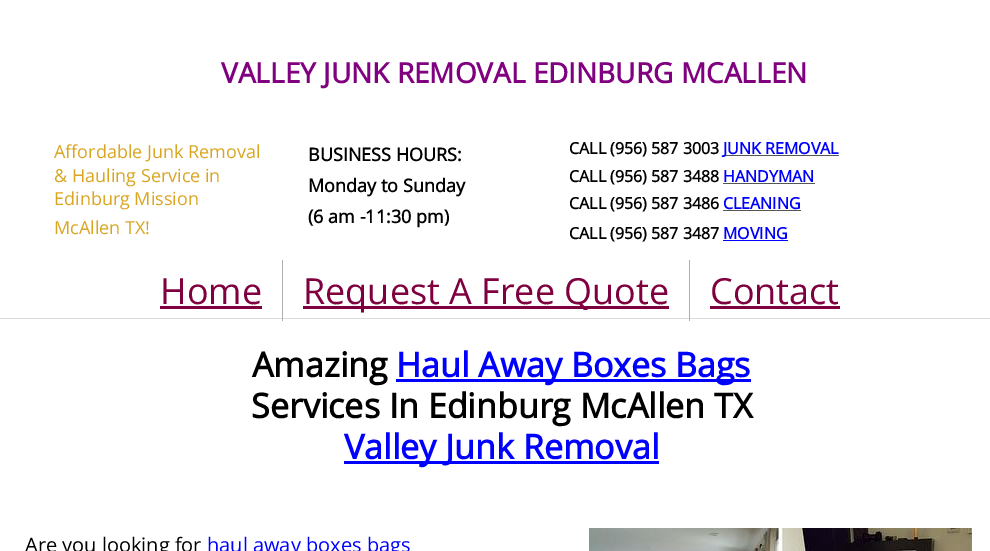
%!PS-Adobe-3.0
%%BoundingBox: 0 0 990 551
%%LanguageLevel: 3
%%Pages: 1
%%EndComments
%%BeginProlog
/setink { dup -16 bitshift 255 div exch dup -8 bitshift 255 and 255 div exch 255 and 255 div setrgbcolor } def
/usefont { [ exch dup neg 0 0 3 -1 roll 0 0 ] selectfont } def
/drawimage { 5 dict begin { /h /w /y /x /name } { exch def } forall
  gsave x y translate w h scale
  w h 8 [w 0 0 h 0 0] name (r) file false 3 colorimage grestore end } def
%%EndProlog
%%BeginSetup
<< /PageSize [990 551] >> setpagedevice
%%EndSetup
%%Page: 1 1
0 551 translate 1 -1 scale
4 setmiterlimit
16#FFFFFF setink
0 0 990 551 rectfill
/OpenSans-Bold 28 usefont
16#800080 setink
221 83 moveto (VALLEY JUNK REMOVAL EDINBURG MCALLEN) show
/OpenSans-Regular 18 usefont
16#DAA520 setink
[
    [(Affordable Junk Removal) 54 158]
    [(& Hauling Service in) 54 182]
    [(Edinburg Mission) 54 205]
    [(McAllen TX!) 54 234]
] { aload pop moveto show } forall
/OpenSans-Bold 18 usefont
16#000000 setink
[
    [(BUSINESS HOURS:) 308 161]
    [(Monday to Sunday) 308 192]
    [(\(6 am -11:30 pm\)) 308 223]
] { aload pop moveto show } forall
/OpenSans-Bold 16 usefont
569 154 moveto (CALL \(956\) 587 3003) show
16#555555 setink
723 155 116 1 rectfill
16#0000FF setink
723 154 moveto (JUNK REMOVAL) show
16#000000 setink
569 182 moveto (CALL \(956\) 587 3488) show
16#0000FF setink
723 182 moveto (HANDYMAN) show
16#555555 setink
723 183 92 1 rectfill
16#000000 setink
569 209 moveto (CALL \(956\) 587 3486) show
16#0000FF setink
723 209 moveto (CLEANING) show
16#555555 setink
723 210 78 1 rectfill
16#000000 setink
569 239 moveto (CALL \(956\) 587 3487) show
16#0000FF setink
723 239 moveto (MOVING) show
[
    [723 240 65 1 16#0000FF]
    [0 318 990 1 16#DADADA]
    [282 260 1 61 16#AEAEAE]
] { aload pop setink rectfill } forall
/OpenSans-Regular 36 usefont
16#7F003F setink
160 304 moveto (Home) show
[
    [160 306 102 3 16#7F003F]
    [689 260 1 61 16#AEAEAE]
    [303 306 366 3 16#7F003F]
] { aload pop setink rectfill } forall
303 304 moveto (Request A Free Quote) show
710 304 moveto (Contact) show
710 306 130 3 rectfill
/OpenSans-Bold 34 usefont
16#000000 setink
252 377 moveto (Amazing) show
16#0000FF setink
396 379 355 3 rectfill
396 377 moveto (Haul Away Boxes Bags) show
16#000000 setink
251 418 moveto (Services In Edinburg McAllen TX) show
16#0000FF setink
344 461 315 3 rectfill
344 459 moveto (Valley Junk Removal) show
/OpenSans-Regular 20 usefont
16#000000 setink
25 552 moveto (Are you looking for) show
16#0000FF setink
207 552 moveto (haul away boxes bags) show
(img1.raw) 589 528 383 23 drawimage
showpage
%%EOF
